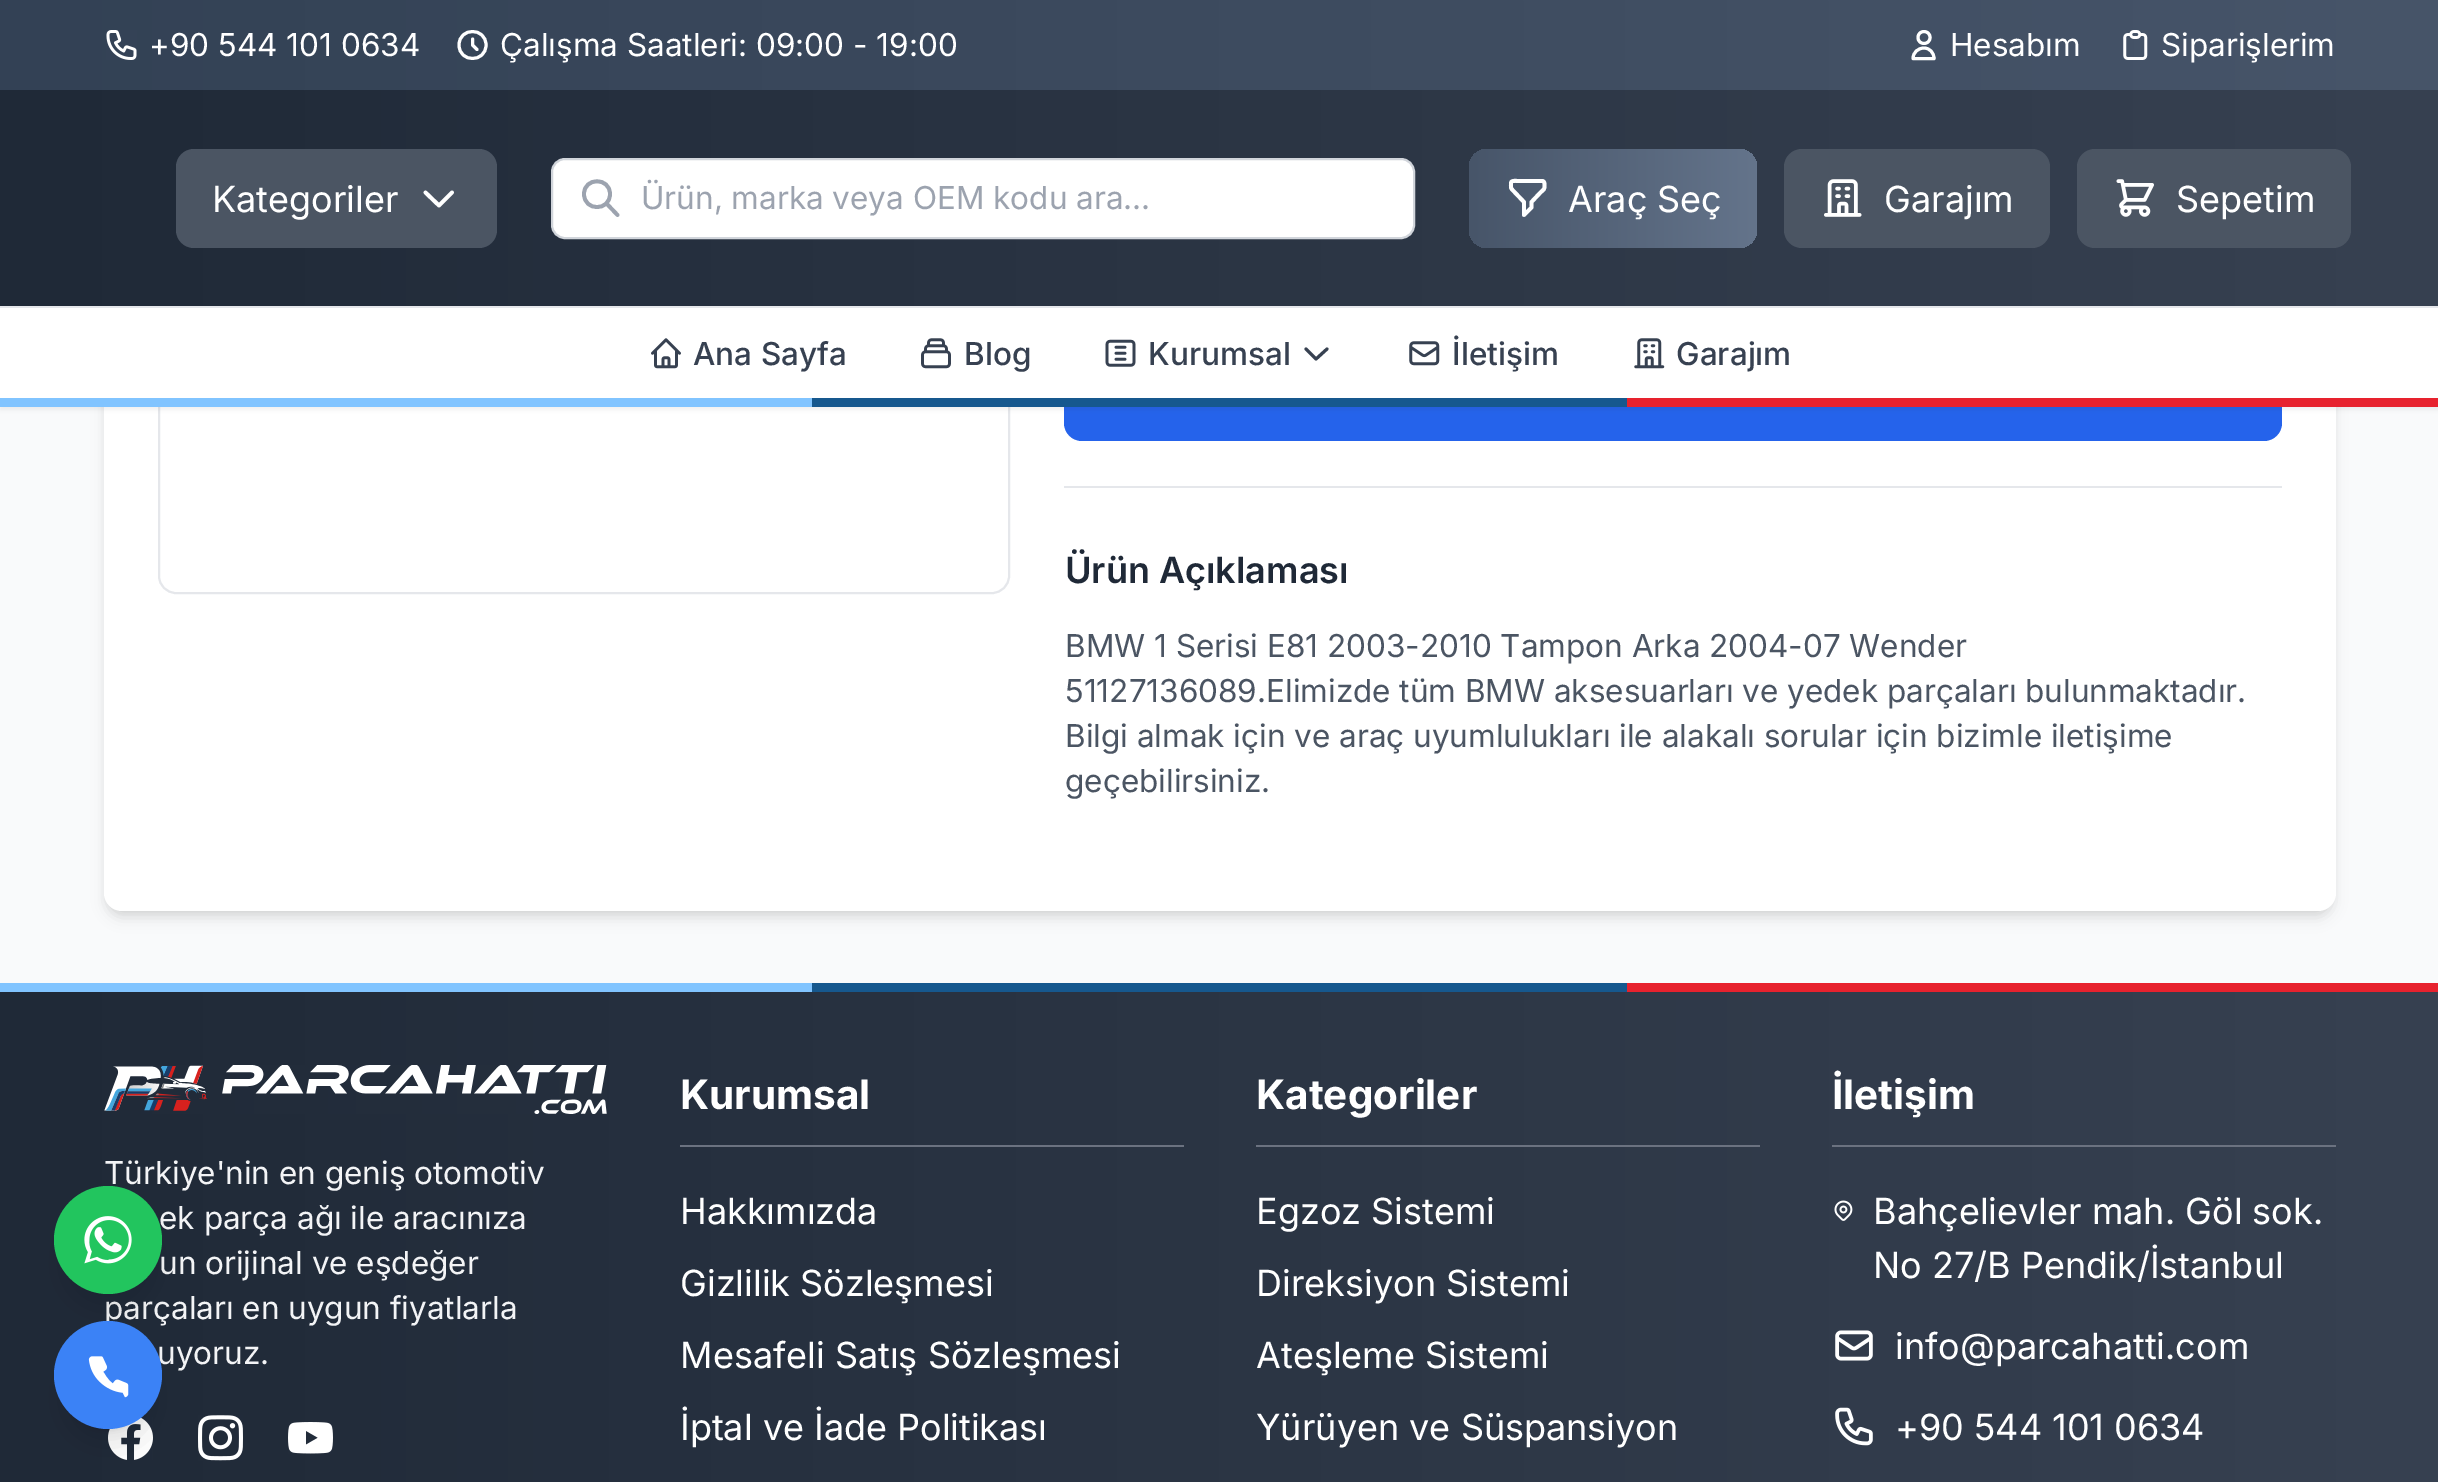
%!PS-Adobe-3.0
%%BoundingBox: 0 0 2438 1482
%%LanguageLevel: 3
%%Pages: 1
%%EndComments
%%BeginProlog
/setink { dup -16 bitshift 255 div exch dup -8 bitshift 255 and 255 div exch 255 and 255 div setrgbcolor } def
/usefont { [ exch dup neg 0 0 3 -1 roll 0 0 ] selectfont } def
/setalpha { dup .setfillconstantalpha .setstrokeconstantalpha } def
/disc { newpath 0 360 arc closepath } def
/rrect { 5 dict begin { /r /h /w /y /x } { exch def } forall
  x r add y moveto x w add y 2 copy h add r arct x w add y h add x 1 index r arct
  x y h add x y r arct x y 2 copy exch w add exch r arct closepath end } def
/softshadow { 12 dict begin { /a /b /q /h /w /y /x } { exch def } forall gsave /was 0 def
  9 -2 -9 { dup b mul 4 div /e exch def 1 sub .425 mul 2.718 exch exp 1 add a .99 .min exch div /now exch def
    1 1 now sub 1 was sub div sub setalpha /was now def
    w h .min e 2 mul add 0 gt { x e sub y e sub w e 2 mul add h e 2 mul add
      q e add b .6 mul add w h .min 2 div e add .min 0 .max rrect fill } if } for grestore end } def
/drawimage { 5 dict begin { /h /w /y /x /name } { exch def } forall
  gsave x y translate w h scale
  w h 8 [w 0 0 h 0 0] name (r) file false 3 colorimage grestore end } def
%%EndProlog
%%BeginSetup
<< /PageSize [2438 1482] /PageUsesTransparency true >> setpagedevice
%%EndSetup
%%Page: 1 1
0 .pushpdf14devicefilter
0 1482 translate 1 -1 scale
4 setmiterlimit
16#F9FAFB setink
0 0 2438 1482 rectfill
16#000000 setink
108 -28 2223 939 14 4.5 0.1 softshadow
106 -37 2227 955 16 7 0.1 softshadow
16#FFFFFF setink
104 -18 2232 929 18 rrect fill
16#E5E7EB setink
2 setlinewidth
159 -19 850 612 17 rrect stroke
16#2563EB setink
1064 333 1218 108 18 rrect fill
16#000000 setink
0 2 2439 408 0 2 0.05 softshadow
gsave 0 90 moveto 2438 90 lineto 2438 306 lineto 0 306 lineto closepath clip newpath
<< /ShadingType 2 /ColorSpace /DeviceRGB /Coords [0 204 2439 204] /Extend [true true] /Function << /FunctionType 2 /Domain [0 1] /C0 [0.122 0.161 0.216] /C1 [0.216 0.255 0.318] /N 1 >> >> shfill grestore
gsave 0 0 moveto 2438 0 lineto 2438 90 lineto 0 90 lineto closepath clip newpath
<< /ShadingType 2 /ColorSpace /DeviceRGB /Coords [0 45 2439 45] /Extend [true true] /Function << /FunctionType 2 /Domain [0 1] /C0 [0.2 0.255 0.333] /C1 [0.278 0.333 0.412] /N 1 >> >> shfill grestore
(img1.raw) 106 30 31 30 drawimage
/Inter-Regular 31.5 usefont
16#FFFFFF setink
149 56 moveto (+90 544 101 0634) show
3 setlinewidth
1 setlinecap
1 setlinejoin
472.5 39 moveto 472.5 45 lineto 477 49.5 lineto 486 45 moveto 486 63 459 63 459 45 curveto 459 27 486 27 486 45 curveto closepath stroke
500 56 moveto (Çalışma Saatleri: 09:00 - 19:00) show
1930 37.5 moveto 1930 45.5 1918 45.5 1918 37.5 curveto 1918 29.5 1930 29.5 1930 37.5 curveto closepath 1924 48 moveto 1918 48 1913 52.5 1913 58.5 curveto 1934 58.5 lineto 1934 52.5 1929.5 48 1924 48 curveto closepath stroke
1950 56 moveto (Hesabım) show
(img2.raw) 2123 30 25 30 drawimage
2161 56 moveto (Siparişlerim) show
16#4B5563 setink
176 149 321 99 18 rrect fill
/Inter-Regular 36 usefont
16#FFFFFF setink
212 212 moveto (Kategoriler) show
3.8 setlinewidth
452 192.5 moveto 439 205.5 lineto 425.5 192.5 lineto stroke
552 159 862 79 13 rrect gsave fill grestore
16#D1D5DB setink
2 setlinewidth
0 setlinecap
0 setlinejoin
stroke
16#9CA3AF setink
3.8 setlinewidth
1 setlinecap
1 setlinejoin
617.5 215 moveto 606.5 203.5 lineto 610 194 moveto 610 211.5 584 211.5 584 194 curveto 584 177 610 177 610 194 curveto closepath stroke
/Inter-Regular 31.5 usefont
641 209 moveto (Ürün, marka veya OEM kodu ara...) show
gsave 1469 149 288 99 18 rrect clip newpath
<< /ShadingType 2 /ColorSpace /DeviceRGB /Coords [1469 198 1757 198] /Extend [true true] /Function << /FunctionType 2 /Domain [0 1] /C0 [0.278 0.333 0.412] /C1 [0.392 0.455 0.545] /N 1 >> >> shfill grestore
16#FFFFFF setink
1511 183 moveto 1511 180 1517 181 1518 181 curveto 1538 181 lineto 1542.5 181 1544.5 180 1544.5 184.5 curveto 1544.5 190 1544.5 188.5 1540 193 curveto 1531.5 202 lineto 1531.5 207.5 lineto 1524 215 lineto 1524 202 lineto 1513.5 191 lineto 1510 187.5 1511 188 1511 183 curveto closepath stroke
/Inter-Regular 36 usefont
1568 212 moveto (Araç Seç) show
16#4B5563 setink
1784 149 266 99 18 rrect fill
(img3.raw) 1824 179 38 38 drawimage
16#FFFFFF setink
1884 212 moveto (Garajım) show
16#4B5563 setink
2077 149 274 99 18 rrect fill
(img4.raw) 2116 179 38 38 drawimage
16#FFFFFF setink
2176 212 moveto (Sepetim) show
0 308 2438 90 rectfill
16#E5E7EB setink
0 306 2438 2 rectfill
(img5.raw) 651 338 30 31 drawimage
/Inter-Medium 31.5 usefont
16#374151 setink
693 365 moveto (Ana Sayfa) show
(img6.raw) 921 338 30 31 drawimage
964 365 moveto (Blog) show
(img7.raw) 1105 339 31 28 drawimage
1148 365 moveto (Kurumsal) show
3 setlinewidth
1327 349 moveto 1316 359 lineto 1306 349 lineto stroke
(img8.raw) 1409 341 31 25 drawimage
1452 365 moveto (İletişim) show
(img9.raw) 1634 338 31 31 drawimage
1676 365 moveto (Garajım) show
[
    [0 398 812 9 16#81C4FF]
    [812 398 815 9 16#16588E]
    [1627 398 811 9 16#E7222E]
    [1064 486 1218 2 16#E5E7EB]
] { aload pop setink rectfill } forall
/Inter-SemiBold 36 usefont
16#1F2937 setink
1065 583 moveto (Ürün Açıklaması) show
/Inter-Regular 31.5 usefont
16#4B5563 setink
[
    [(BMW 1 Serisi E81 2003-2010 Tampon Arka 2004-07 Wender) 1065 657]
    [(51127136089.Elimizde tüm BMW aksesuarları ve yedek parçaları bulunmaktadır.) 1065 702]
    [(Bilgi almak için ve araç uyumlulukları ile alakalı sorular için bizimle iletişime) 1065 747]
    [(geçebilirsiniz.) 1065 792]
] { aload pop moveto show } forall
gsave 0 992 moveto 2438 992 lineto 2438 1482 lineto 0 1482 lineto closepath clip newpath
<< /ShadingType 2 /ColorSpace /DeviceRGB /Coords [0 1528 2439 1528] /Extend [true true] /Function << /FunctionType 2 /Domain [0 1] /C0 [0.122 0.161 0.216] /C1 [0.216 0.255 0.318] /N 1 >> >> shfill grestore
[
    [0 983 812 9 16#81C4FF]
    [812 983 815 9 16#16588E]
    [1627 983 811 9 16#E7222E]
] { aload pop setink rectfill } forall
(img10.raw) 104 1065 503 49 drawimage
16#F3F4F6 setink
[
    [(Türkiye'nin en geniş otomotiv) 104 1184]
    [(ek parça ağı ile aracınıza) 159 1229]
    [(un orijinal ve eşdeğer) 159 1274]
    [(parçaları en uygun fiyatlarla) 104 1319]
    [(uyoruz.) 157 1364]
] { aload pop moveto show } forall
(img11.raw) 108 1417 45 43 drawimage
(img12.raw) 198 1415 45 46 drawimage
(img13.raw) 288 1422 45 32 drawimage
16#6B7280 setink
680 1145 504 2 rectfill
/Inter-Bold 40.5 usefont
16#FFFFFF setink
680 1109 moveto (Kurumsal) show
/Inter-Regular 36 usefont
[
    [(Hakkımızda) 680 1224]
    [(Gizlilik Sözleşmesi) 680 1296]
    [(Mesafeli Satış Sözleşmesi) 680 1368]
    [(İptal ve İade Politikası) 680 1440]
] { aload pop moveto show } forall
16#6B7280 setink
1256 1145 504 2 rectfill
/Inter-Bold 40.5 usefont
16#FFFFFF setink
1256 1109 moveto (Kategoriler) show
/Inter-Regular 36 usefont
[
    [(Egzoz Sistemi) 1256 1224]
    [(Direksiyon Sistemi) 1256 1296]
    [(Ateşleme Sistemi) 1256 1368]
    [(Yürüyen ve Süspansiyon) 1256 1440]
] { aload pop moveto show } forall
16#6B7280 setink
1832 1145 504 2 rectfill
/Inter-Bold 40.5 usefont
16#FFFFFF setink
1832 1109 moveto (İletişim) show
(img14.raw) 1834 1200 19 21 drawimage
/Inter-Regular 36 usefont
1873 1224 moveto (Bahçelievler mah. Göl sok.) show
1873 1278 moveto (No 27/B Pendik/İstanbul) show
(img15.raw) 1835 1330 38 31 drawimage
1895 1359 moveto (info@parcahatti.com) show
(img16.raw) 1835 1407 38 39 drawimage
1895 1440 moveto (+90 544 101 0634) show
16#000000 setink
61 1215 94 95 47 17 0.1 softshadow
16#22C55E setink
108 1240 54 disc fill
(img17.raw) 84 1216 48 48 drawimage
16#000000 setink
63 1339 90 90 45 7 0.1 softshadow
61 1350 94 95 47 17 0.1 softshadow
16#3B82F6 setink
108 1375 54 disc fill
(img18.raw) 88 1356 41 42 drawimage
.poppdf14devicefilter showpage
%%EOF
